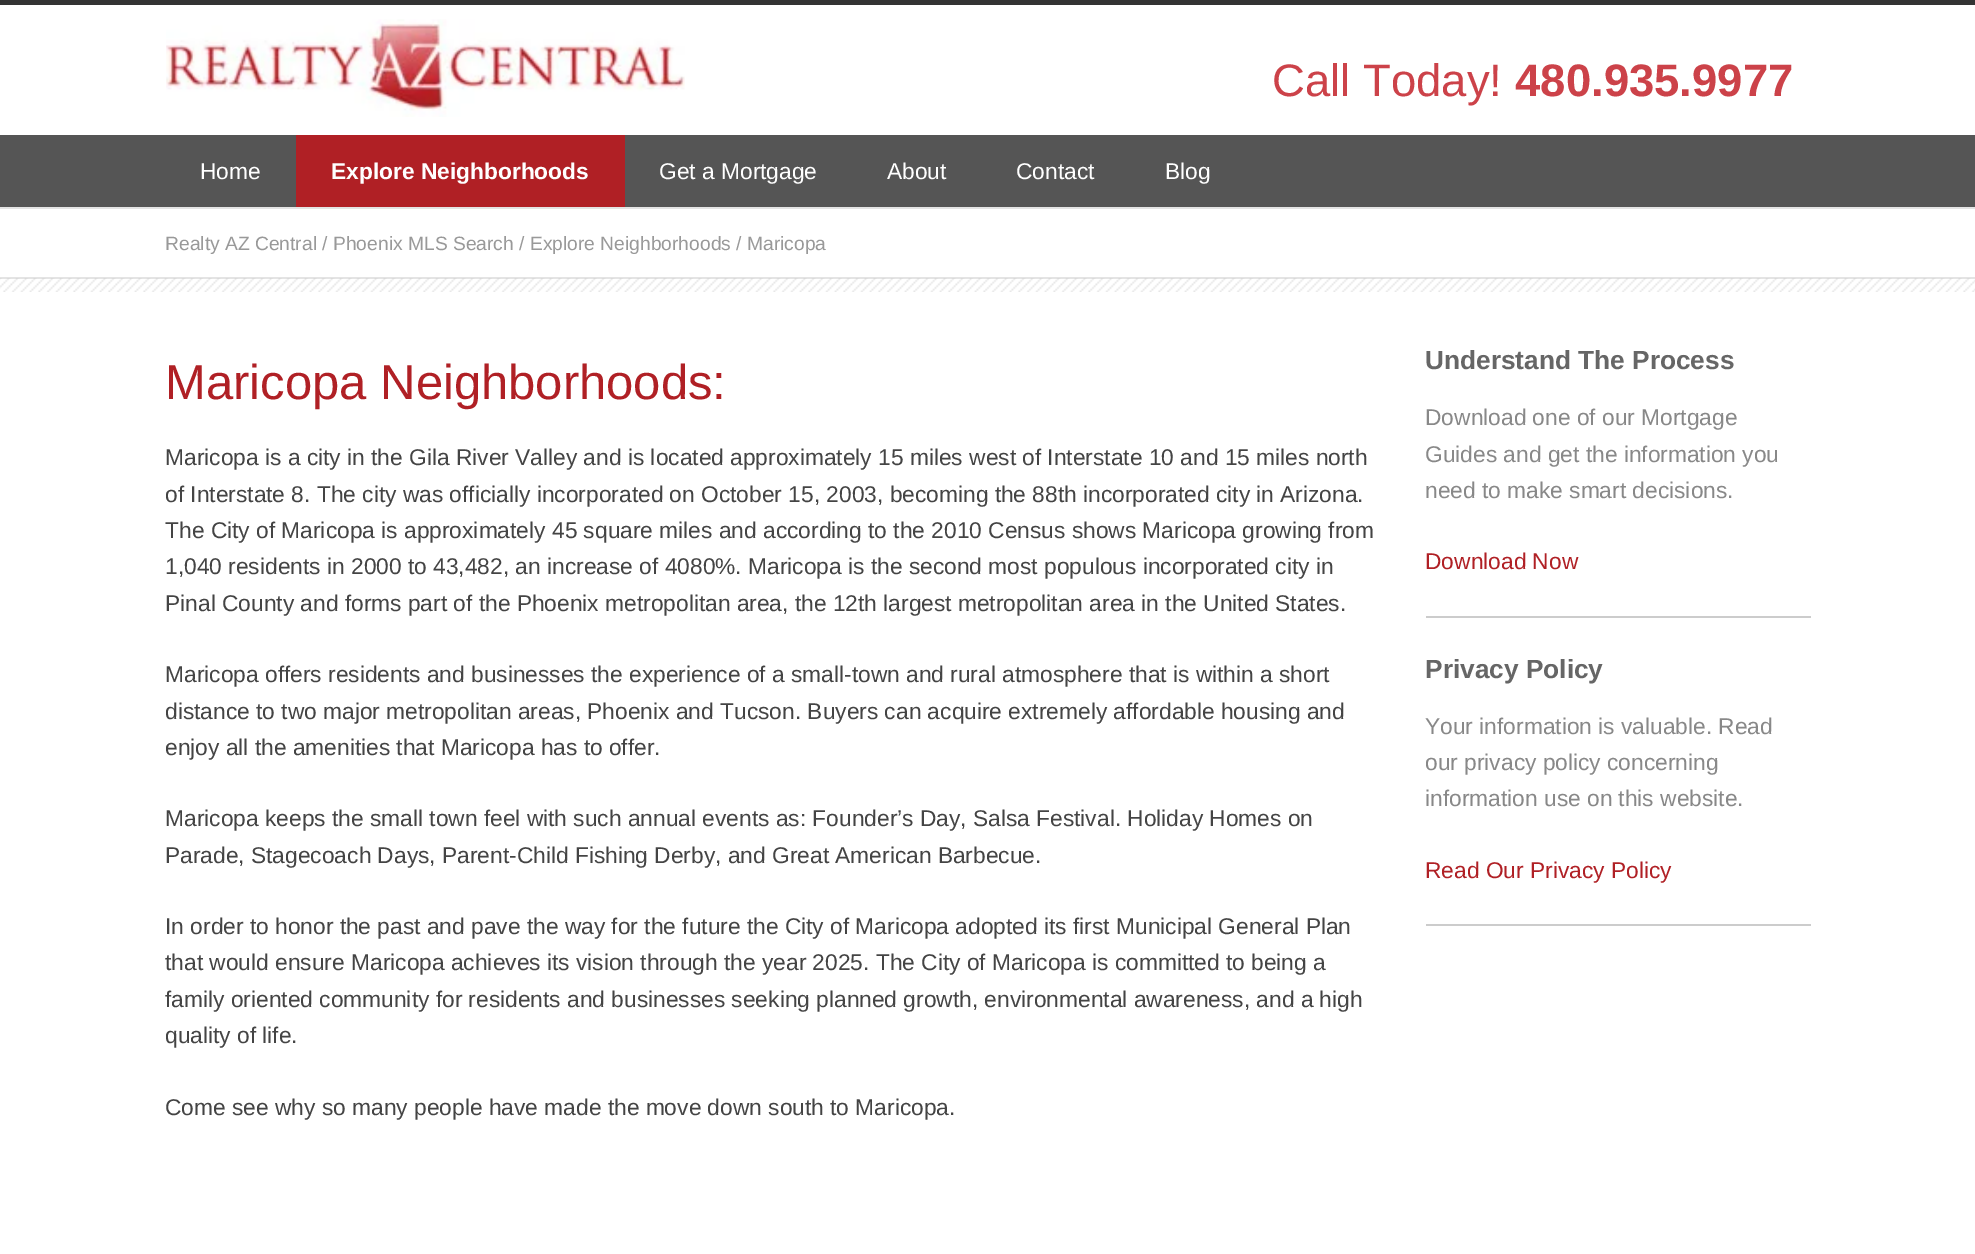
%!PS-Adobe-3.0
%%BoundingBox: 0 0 1975 1254
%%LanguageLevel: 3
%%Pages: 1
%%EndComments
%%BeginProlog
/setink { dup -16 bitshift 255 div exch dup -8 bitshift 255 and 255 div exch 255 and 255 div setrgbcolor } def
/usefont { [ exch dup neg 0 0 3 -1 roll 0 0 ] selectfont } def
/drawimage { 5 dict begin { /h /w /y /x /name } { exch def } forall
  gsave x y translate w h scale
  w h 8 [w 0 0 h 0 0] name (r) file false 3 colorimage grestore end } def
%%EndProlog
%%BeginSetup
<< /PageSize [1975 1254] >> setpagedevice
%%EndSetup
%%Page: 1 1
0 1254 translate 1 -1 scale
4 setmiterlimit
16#FFFFFF setink
0 0 1975 1254 rectfill
16#333333 setink
0 0 1975 5 rectfill
(img1.raw) 166 19 519 98 drawimage
/LiberationSans-Regular 45.5 usefont
16#CC4249 setink
1272 96 moveto (Call Today!) show
/LiberationSans-Bold 45.5 usefont
1515 96 moveto (480.935.9977) show
16#555555 setink
0 135 1975 72 rectfill
/LiberationSans-Regular 22.75 usefont
16#FFFFFF setink
200 179 moveto (Home) show
16#B02025 setink
296 135 329 72 rectfill
/LiberationSans-Bold 22.75 usefont
16#FFFFFF setink
331 179 moveto (Explore Neighborhoods) show
/LiberationSans-Regular 22.75 usefont
[
    [(Get a Mortgage) 659 179]
    [(About) 887 179]
    [(Contact) 1016 179]
    [(Blog) 1165 179]
] { aload pop moveto show } forall
16#E4E4E4 setink
0 207 1975 2 rectfill
0 277 1975 2 rectfill
/LiberationSans-Regular 19.25 usefont
16#999999 setink
165 250 moveto (Realty AZ Central / Phoenix MLS Search / Explore Neighborhoods / Maricopa) show
(img2.raw) 0 278 1975 14 drawimage
/LiberationSans-Regular 49 usefont
16#B02025 setink
165 399 moveto (Maricopa Neighborhoods:) show
/LiberationSans-Regular 22.75 usefont
16#444444 setink
[
    [(Maricopa is a city in the Gila River Valley and is located approximately 15 miles west of Interstate 10 and 15 miles north) 165 465]
    [(of Interstate 8. The city was officially incorporated on October 15, 2003, becoming the 88th incorporated city in Arizona.) 165 502]
    [(The City of Maricopa is approximately 45 square miles and according to the 2010 Census shows Maricopa growing from) 165 538]
    [(1,040 residents in 2000 to 43,482, an increase of 4080%. Maricopa is the second most populous incorporated city in) 165 574]
    [(Pinal County and forms part of the Phoenix metropolitan area, the 12th largest metropolitan area in the United States.) 165 611]
    [(Maricopa offers residents and businesses the experience of a small-town and rural atmosphere that is within a short) 165 682]
    [(distance to two major metropolitan areas, Phoenix and Tucson. Buyers can acquire extremely affordable housing and) 165 719]
    [(enjoy all the amenities that Maricopa has to offer.) 165 755]
    [(Maricopa keeps the small town feel with such annual events as: Founder’s Day, Salsa Festival. Holiday Homes on) 165 826]
    [(Parade, Stagecoach Days, Parent-Child Fishing Derby, and Great American Barbecue.) 165 863]
    [(In order to honor the past and pave the way for the future the City of Maricopa adopted its first Municipal General Plan) 165 934]
    [(that would ensure Maricopa achieves its vision through the year 2025. The City of Maricopa is committed to being a) 165 970]
    [(family oriented community for residents and businesses seeking planned growth, environmental awareness, and a high) 165 1007]
    [(quality of life.) 165 1043]
    [(Come see why so many people have made the move down south to Maricopa.) 165 1115]
] { aload pop moveto show } forall
/LiberationSans-Bold 26.25 usefont
16#666666 setink
1425 369 moveto (Understand The Process) show
/LiberationSans-Regular 22.75 usefont
16#888888 setink
[
    [(Download one of our Mortgage) 1425 425]
    [(Guides and get the information you) 1425 462]
    [(need to make smart decisions.) 1425 498]
] { aload pop moveto show } forall
16#CCCCCC setink
1426 616 385 2 rectfill
16#B02025 setink
1425 569 moveto (Download Now) show
/LiberationSans-Bold 26.25 usefont
16#666666 setink
1425 678 moveto (Privacy Policy) show
/LiberationSans-Regular 22.75 usefont
16#888888 setink
[
    [(Your information is valuable. Read) 1425 734]
    [(our privacy policy concerning) 1425 770]
    [(information use on this website.) 1425 806]
] { aload pop moveto show } forall
16#CCCCCC setink
1426 924 385 2 rectfill
16#B02025 setink
1425 878 moveto (Read Our Privacy Policy) show
showpage
%%EOF
